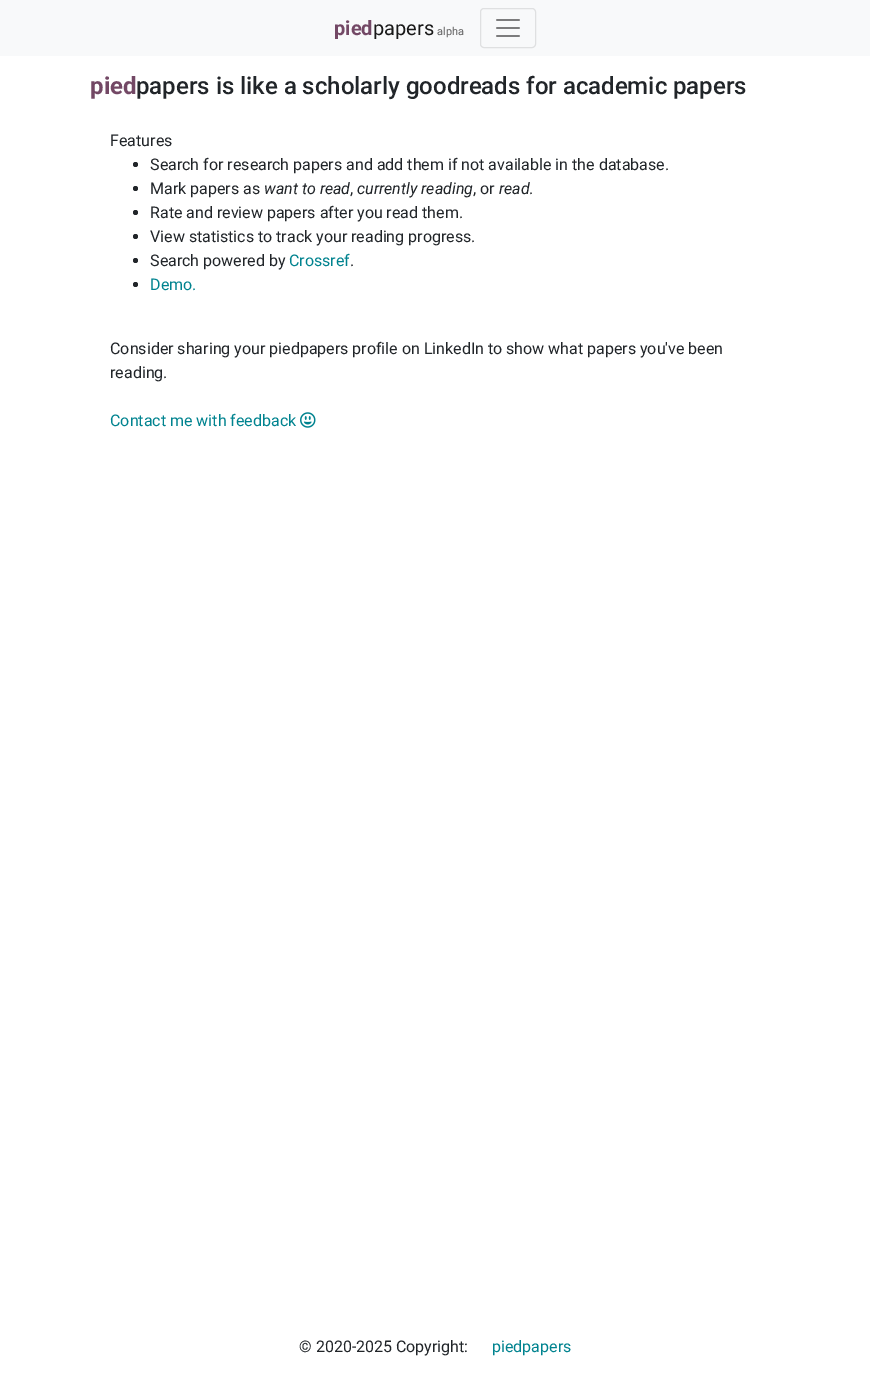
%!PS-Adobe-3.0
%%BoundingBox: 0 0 870 1375
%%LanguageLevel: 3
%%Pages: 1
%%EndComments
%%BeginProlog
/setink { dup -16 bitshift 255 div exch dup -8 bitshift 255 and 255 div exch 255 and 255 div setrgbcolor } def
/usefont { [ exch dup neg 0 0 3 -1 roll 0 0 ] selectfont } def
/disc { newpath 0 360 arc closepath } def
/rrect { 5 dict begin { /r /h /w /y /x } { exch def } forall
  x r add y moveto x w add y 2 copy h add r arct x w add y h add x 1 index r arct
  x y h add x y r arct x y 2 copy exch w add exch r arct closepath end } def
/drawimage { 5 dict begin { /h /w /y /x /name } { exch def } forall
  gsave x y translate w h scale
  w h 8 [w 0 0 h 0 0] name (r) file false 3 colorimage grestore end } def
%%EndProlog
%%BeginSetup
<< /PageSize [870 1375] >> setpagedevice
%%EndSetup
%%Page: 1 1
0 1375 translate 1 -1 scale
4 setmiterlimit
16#FFFFFF setink
0 0 870 1375 rectfill
16#F8F9FA setink
0 0 870 56 rectfill
/Roboto-Bold 20 usefont
16#734865 setink
334 35 moveto (pied) show
/Roboto-Regular 20 usefont
16#191919 setink
373 35 moveto (papers) show
/Roboto-Regular 11 usefont
16#616161 setink
437 35 moveto (alpha) show
16#DFE0E1 setink
480.5 8.5 55 39 3.5 rrect stroke
(img1.raw) 496 19 24 18 drawimage
/Roboto-Bold 24 usefont
16#734865 setink
90 94 moveto (pied) show
/Roboto-Medium 24 usefont
16#212529 setink
136 94 moveto (papers is like a scholarly goodreads for academic papers) show
/Roboto-Regular 16 usefont
110 146 moveto (Features) show
135.5 164.5 2.5 disc fill
150 170 moveto (Search for research papers and add them if not available in the database.) show
135.5 188.5 2.5 disc fill
150 194 moveto (Mark papers as) show
/Roboto-Italic 16 usefont
264 194 moveto (want to read) show
357 194 moveto (currently reading) show
/Roboto-Regular 16 usefont
473 194 moveto (, or) show
/Roboto-Italic 16 usefont
499 194 moveto (read) show
/Roboto-Regular 16 usefont
350 194 moveto (,) show
529 194 moveto (.) show
135.5 212.5 2.5 disc fill
150 218 moveto (Rate and review papers after you read them.) show
135.5 236.5 2.5 disc fill
150 242 moveto (View statistics to track your reading progress.) show
135.5 260.5 2.5 disc fill
150 266 moveto (Search powered by) show
16#00838F setink
289 266 moveto (Crossref) show
16#212529 setink
350 266 moveto (.) show
135.5 284.5 2.5 disc fill
16#00838F setink
150 290 moveto (Demo.) show
16#212529 setink
110 354 moveto (Consider sharing your piedpapers profile on LinkedIn to show what papers you've been) show
110 378 moveto (reading.) show
16#00838F setink
110 426 moveto (Contact me with feedback) show
(img2.raw) 300 412 16 16 drawimage
16#212529 setink
299 1352 moveto (© 2020-2025 Copyright:) show
16#00838F setink
492 1352 moveto (piedpapers) show
showpage
%%EOF
